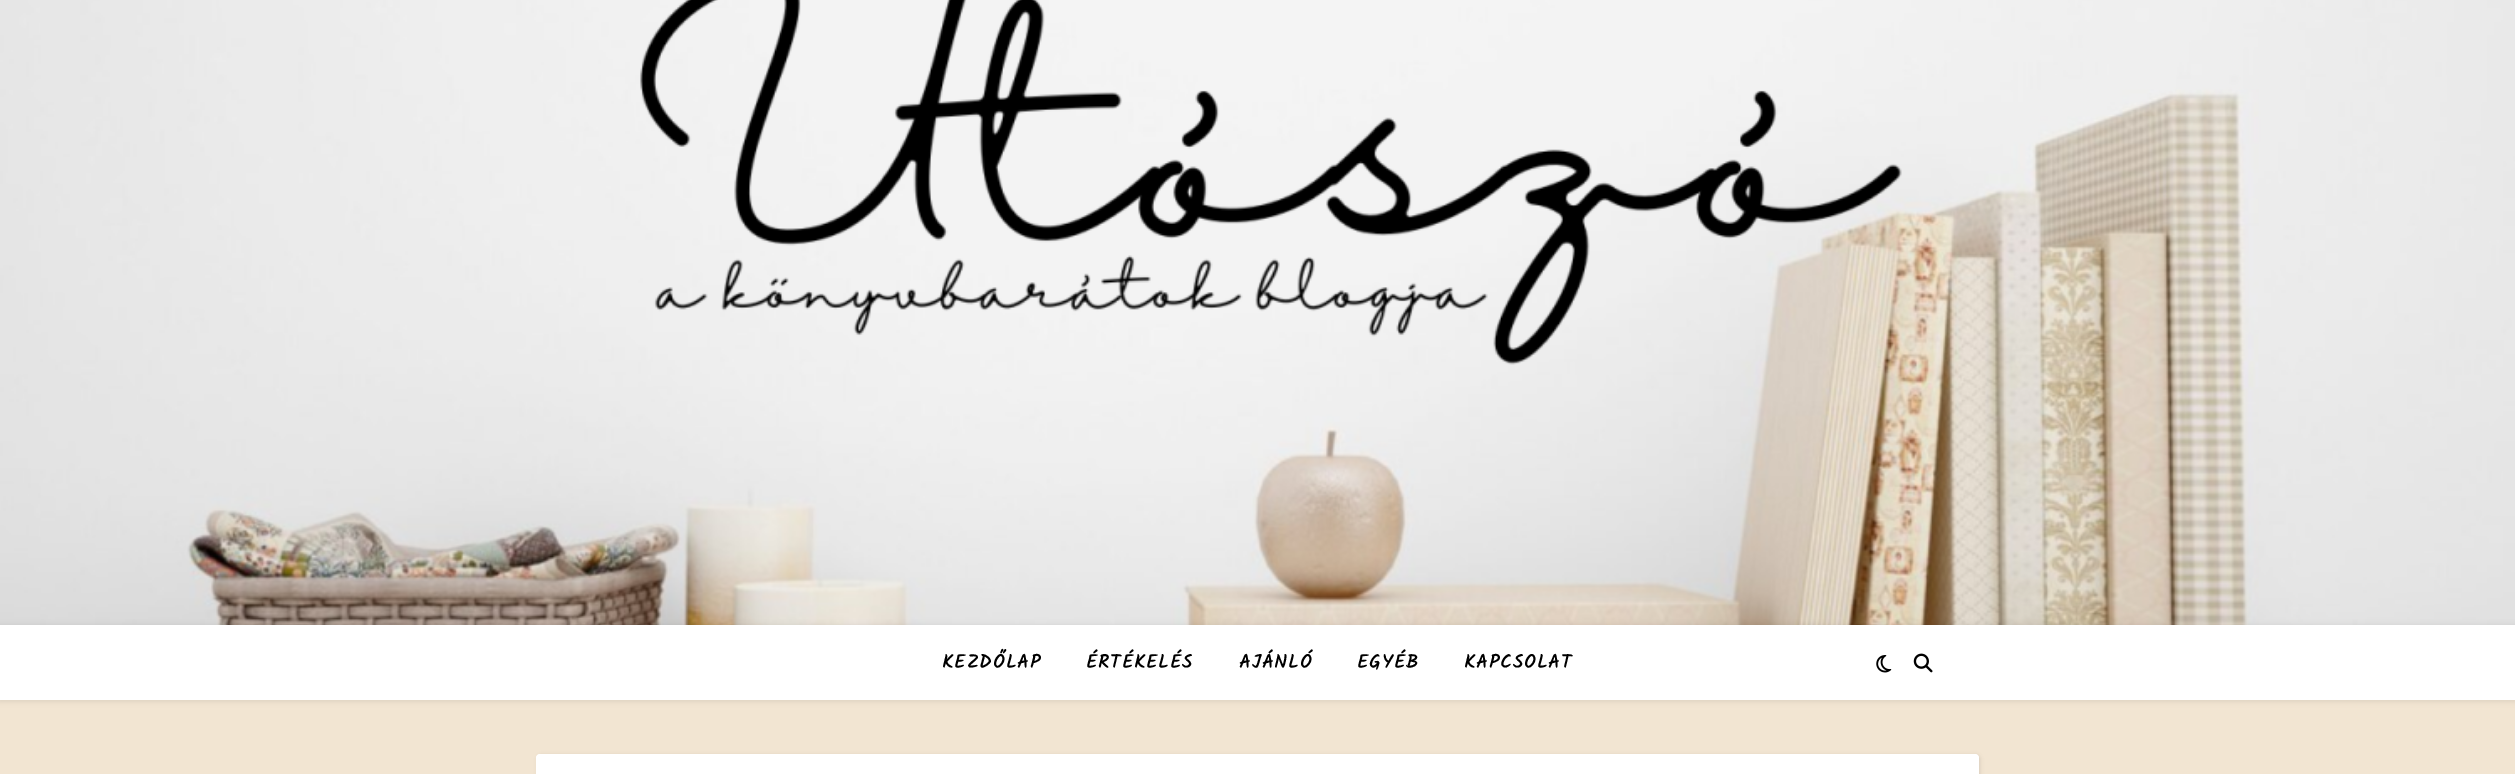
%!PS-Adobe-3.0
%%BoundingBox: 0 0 2515 774
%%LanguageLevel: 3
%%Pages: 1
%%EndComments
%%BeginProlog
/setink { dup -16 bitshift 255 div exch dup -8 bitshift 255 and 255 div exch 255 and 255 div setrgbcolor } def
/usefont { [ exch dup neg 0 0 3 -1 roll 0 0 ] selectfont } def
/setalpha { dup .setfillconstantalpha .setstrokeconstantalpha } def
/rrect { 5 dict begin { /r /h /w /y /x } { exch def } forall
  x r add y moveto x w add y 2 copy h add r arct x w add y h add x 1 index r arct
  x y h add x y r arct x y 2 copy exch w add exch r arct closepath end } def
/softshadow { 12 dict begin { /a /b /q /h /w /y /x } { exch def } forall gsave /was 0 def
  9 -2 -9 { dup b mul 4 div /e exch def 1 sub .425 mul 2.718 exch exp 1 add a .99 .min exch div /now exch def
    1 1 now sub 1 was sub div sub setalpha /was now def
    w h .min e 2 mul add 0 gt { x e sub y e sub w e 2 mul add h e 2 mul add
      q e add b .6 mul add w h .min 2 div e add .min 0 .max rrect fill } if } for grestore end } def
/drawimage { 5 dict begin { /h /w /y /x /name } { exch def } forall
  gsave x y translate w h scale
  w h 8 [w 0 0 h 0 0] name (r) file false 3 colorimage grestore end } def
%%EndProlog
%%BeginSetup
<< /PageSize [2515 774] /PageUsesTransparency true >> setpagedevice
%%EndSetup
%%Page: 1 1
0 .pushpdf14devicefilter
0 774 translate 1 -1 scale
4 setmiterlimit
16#F2E5D2 setink
0 0 2515 774 rectfill
(img1.raw) 0 0 2515 625 drawimage
16#000000 setink
0 626 2515 75 0 3 0.1 softshadow
16#FFFFFF setink
0 625 2515 75 rectfill
/Kalam-Bold 18.75 usefont
16#000000 setink
942 668 moveto 1.25 0 (KEZDŐLAP) ashow
1086 668 moveto 1.25 0 (ÉRTÉKELÉS) ashow
1239 668 moveto 1.25 0 (AJÁNLÓ) ashow
1357 668 moveto 1.25 0 (EGYÉB) ashow
1464 668 moveto 1.25 0 (KAPCSOLAT) ashow
(img2.raw) 1876 655 16 18 drawimage
(img3.raw) 1913 653 20 20 drawimage
538 755 1442 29 4 2 0.1 softshadow
16#FFFFFF setink
536 754 1443 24 4 rrect fill
.poppdf14devicefilter showpage
%%EOF
